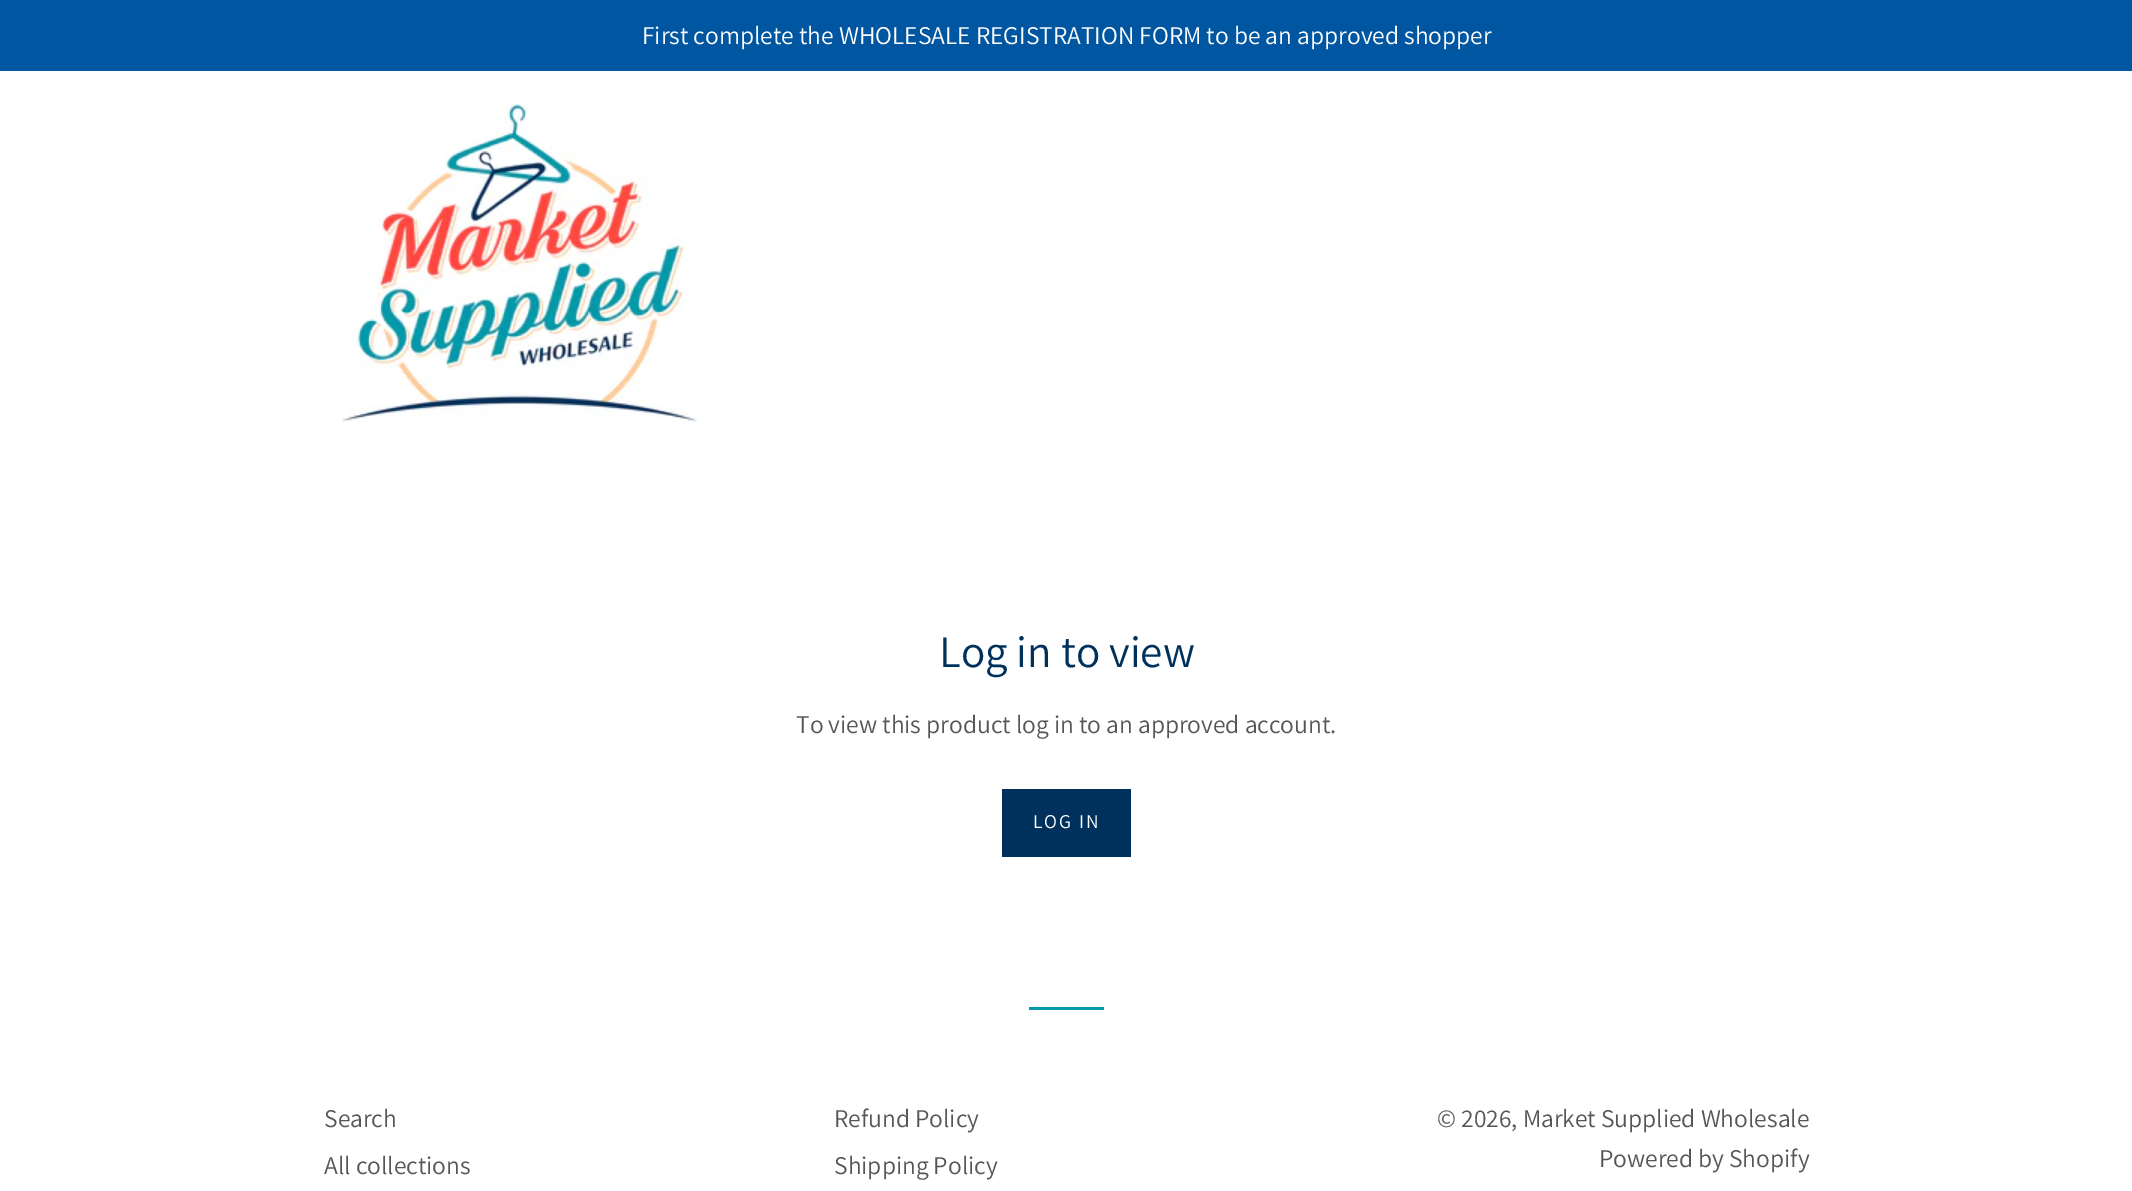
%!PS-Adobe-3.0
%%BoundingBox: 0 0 2132 1191
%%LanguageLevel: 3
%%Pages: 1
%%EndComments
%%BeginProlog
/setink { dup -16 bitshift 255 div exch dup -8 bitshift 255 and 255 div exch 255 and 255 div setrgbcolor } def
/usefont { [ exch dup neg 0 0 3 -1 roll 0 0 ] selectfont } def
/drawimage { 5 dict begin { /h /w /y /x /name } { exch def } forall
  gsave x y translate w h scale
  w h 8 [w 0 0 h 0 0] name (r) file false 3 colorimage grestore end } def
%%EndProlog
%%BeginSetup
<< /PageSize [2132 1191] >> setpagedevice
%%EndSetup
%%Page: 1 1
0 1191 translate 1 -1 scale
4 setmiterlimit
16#FFFFFF setink
0 0 2132 1191 rectfill
16#0056A1 setink
0 0 2132 71 rectfill
/Assistant-Regular 25.5 usefont
16#FFFFFF setink
642 44 moveto (First complete the WHOLESALE REGISTRATION FORM to be an approved shopper) show
(img1.raw) 342 103 356 319 drawimage
/Assistant-Regular 45 usefont
16#00315C setink
939 667 moveto (Log in to view) show
/Assistant-Regular 25.5 usefont
16#565656 setink
796 733 moveto (To view this product log in to an approved account.) show
16#00315C setink
1002 789 129 68 rectfill
/Assistant-Regular 19.5 usefont
16#FFFFFF setink
1033 828 moveto 2 0 (LOG IN) ashow
16#0099A9 setink
1029 1007 75 3 rectfill
/Assistant-Regular 25.5 usefont
16#565656 setink
[
    [(Search) 324 1127]
    [(All collections) 324 1174]
    [(Refund Policy) 834 1127]
    [(Shipping Policy) 834 1174]
    [(© 2026, Market Supplied Wholesale) 1437 1127]
    [(Powered by Shopify) 1599 1167]
] { aload pop moveto show } forall
showpage
%%EOF
